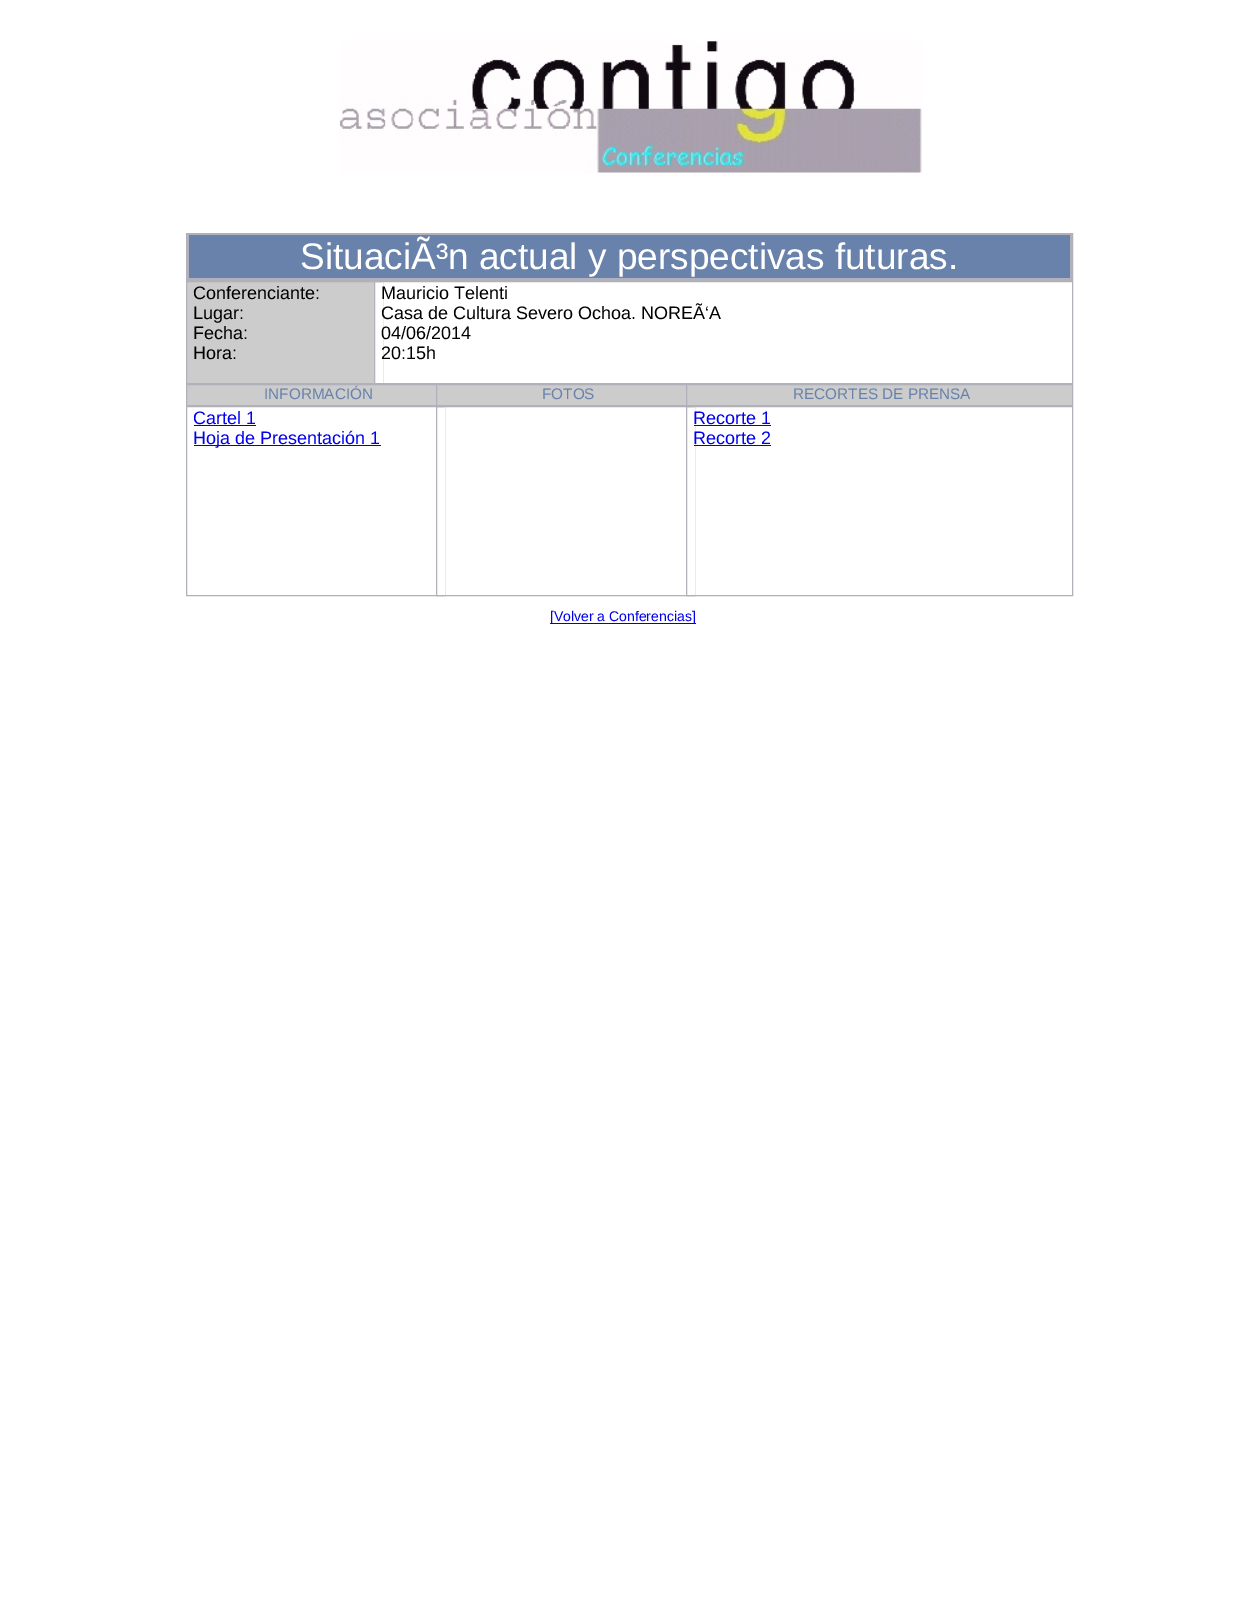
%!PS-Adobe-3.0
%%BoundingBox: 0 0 1246 1608
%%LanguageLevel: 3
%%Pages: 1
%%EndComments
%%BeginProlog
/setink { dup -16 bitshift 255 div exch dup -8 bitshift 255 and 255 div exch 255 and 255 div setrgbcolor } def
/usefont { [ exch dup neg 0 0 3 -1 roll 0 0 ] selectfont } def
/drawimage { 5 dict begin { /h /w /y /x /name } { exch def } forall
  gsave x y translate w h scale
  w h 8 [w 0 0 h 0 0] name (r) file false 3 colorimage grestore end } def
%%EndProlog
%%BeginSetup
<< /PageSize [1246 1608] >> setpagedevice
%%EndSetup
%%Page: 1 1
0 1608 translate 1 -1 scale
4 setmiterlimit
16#FFFFFF setink
0 0 1246 1608 rectfill
(img1.raw) 339 41 583 132 drawimage
16#B0B1BA setink
3 setlinewidth
187.5 234.5 884 45 rectstroke
16#6882AB setink
189 235 881 43 rectfill
/LiberationSans-Regular 37 usefont
16#FFFFFF setink
300 269 moveto (SituaciÃ³n actual y perspectivas futuras.) show
16#CCCCCC setink
187 282 187 101 rectfill
16#B0B1BA setink
1 setlinewidth
186.5 281.5 196 102 rectstroke
/LiberationSans-Regular 18 usefont
16#000000 setink
[
    [(Conferenciante:) 193 299]
    [(Lugar:) 193 319]
    [(Fecha:) 193 339]
    [(Hora:) 193 359]
] { aload pop moveto show } forall
16#FFFFFF setink
382 282 1 101 rectfill
16#B0B1BA setink
374.5 281.5 698 102 rectstroke
16#000000 setink
[
    [(Mauricio Telenti) 381 299]
    [(Casa de Cultura Severo Ochoa. NOREÃ‘A) 381 319]
    [(04/06/2014) 381 339]
    [(20:15h) 381 359]
] { aload pop moveto show } forall
16#CCCCCC setink
187 385 249 20 rectfill
16#B0B1BA setink
186.5 384.5 258 21 rectstroke
/LiberationSans-Regular 15.3 usefont
16#6882AB setink
264 399 moveto (INFORMACIÓN) show
16#CCCCCC setink
437 385 249 20 rectfill
16#B0B1BA setink
436.5 384.5 258 21 rectstroke
16#6882AB setink
542 399 moveto (FOTOS) show
16#CCCCCC setink
686.5 384.5 moveto 1072.5 384.5 lineto 1072.5 405.5 lineto 686.5 405.5 lineto closepath gsave fill grestore
16#B0B1BA setink
stroke
16#6882AB setink
793 399 moveto (RECORTES DE PRENSA) show
16#B0B1BA setink
186.5 406.5 258 189 rectstroke
/LiberationSans-Regular 18 usefont
16#0000EE setink
193 424 moveto (Cartel 1) show
194 425 62 1 rectfill
194 445 187 1 rectfill
193 444 moveto (Hoja de Presentación 1) show
16#FFFFFF setink
444 407 1 188 rectfill
16#B0B1BA setink
436.5 406.5 258 189 rectstroke
16#FFFFFF setink
694 407 1 188 rectfill
16#B0B1BA setink
686.5 406.5 386 189 rectstroke
16#0000EE setink
693 424 moveto (Recorte 1) show
694 425 77 1 rectfill
693 444 moveto (Recorte 2) show
694 445 77 1 rectfill
550 623 146 1 rectfill
/LiberationSans-Regular 14 usefont
550 621 moveto ([Volver a Conferencias]) show
showpage
%%EOF
